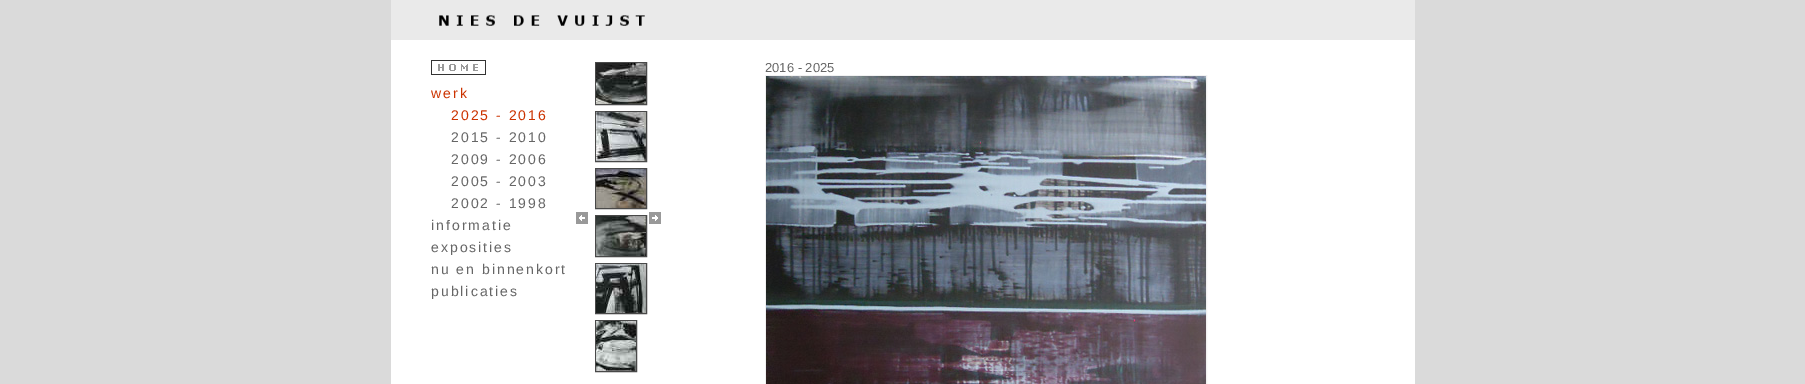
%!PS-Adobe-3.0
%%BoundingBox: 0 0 1805 384
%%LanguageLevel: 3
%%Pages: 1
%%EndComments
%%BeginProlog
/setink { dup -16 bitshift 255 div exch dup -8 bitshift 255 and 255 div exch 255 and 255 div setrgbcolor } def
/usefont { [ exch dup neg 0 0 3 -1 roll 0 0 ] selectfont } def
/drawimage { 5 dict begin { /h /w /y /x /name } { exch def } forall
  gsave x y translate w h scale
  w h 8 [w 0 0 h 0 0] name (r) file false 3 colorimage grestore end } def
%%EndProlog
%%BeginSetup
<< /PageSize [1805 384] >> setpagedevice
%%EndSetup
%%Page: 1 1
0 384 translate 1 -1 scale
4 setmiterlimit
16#DADADA setink
0 0 1805 384 rectfill
16#FFFFFF setink
391 40 1024 344 rectfill
16#EAEAEA setink
391 0 1024 40 rectfill
(img1.raw) 439 15 206 11 drawimage
(img2.raw) 576 212 12 12 drawimage
16#494949 setink
595.5 62.5 51 42 rectstroke
(img3.raw) 596 63 50 41 drawimage
595.5 111.5 51 50 rectstroke
(img4.raw) 596 112 50 49 drawimage
595.5 168.5 51 40 rectstroke
(img5.raw) 596 169 50 39 drawimage
595.5 215.5 51 41 rectstroke
(img6.raw) 596 216 50 40 drawimage
595.5 263.5 51 50 rectstroke
(img7.raw) 596 264 50 49 drawimage
595.5 320.5 41 51 rectstroke
(img8.raw) 596 321 40 50 drawimage
(img9.raw) 649 212 12 12 drawimage
/LiberationSans-Regular 13 usefont
16#666666 setink
765 72 moveto (2016 - 2025) show
16#F1F1F1 setink
765.5 75.5 441 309 rectstroke
(img10.raw) 766 76 440 308 drawimage
(img11.raw) 431 60 55 15 drawimage
/LiberationSans-Regular 14 usefont
16#CC3300 setink
431 98 moveto 2 0 (werk) ashow
451 120 moveto 2 0 (2025 - 2016) ashow
16#666666 setink
451 142 moveto 2 0 (2015 - 2010) ashow
451 164 moveto 2 0 (2009 - 2006) ashow
451 186 moveto 2 0 (2005 - 2003) ashow
451 208 moveto 2 0 (2002 - 1998) ashow
431 230 moveto 2 0 (informatie) ashow
431 252 moveto 2 0 (exposities) ashow
431 274 moveto 2 0 (nu en binnenkort) ashow
431 296 moveto 2 0 (publicaties) ashow
showpage
%%EOF
